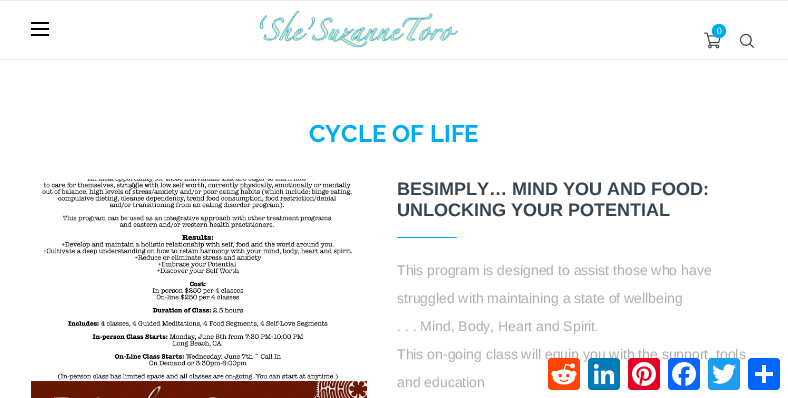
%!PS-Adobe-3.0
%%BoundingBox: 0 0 788 398
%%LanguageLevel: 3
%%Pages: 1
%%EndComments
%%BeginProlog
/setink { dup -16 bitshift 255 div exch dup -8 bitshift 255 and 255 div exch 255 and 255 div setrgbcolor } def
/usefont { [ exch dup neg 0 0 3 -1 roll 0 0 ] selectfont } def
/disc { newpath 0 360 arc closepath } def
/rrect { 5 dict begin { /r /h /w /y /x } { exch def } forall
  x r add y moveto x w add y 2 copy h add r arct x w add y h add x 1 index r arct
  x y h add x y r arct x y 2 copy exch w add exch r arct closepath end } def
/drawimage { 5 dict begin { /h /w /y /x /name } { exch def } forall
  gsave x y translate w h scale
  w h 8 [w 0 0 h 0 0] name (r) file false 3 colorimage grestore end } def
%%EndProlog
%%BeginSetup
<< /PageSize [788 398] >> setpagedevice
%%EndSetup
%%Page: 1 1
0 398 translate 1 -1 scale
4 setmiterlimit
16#FFFFFF setink
0 0 788 398 rectfill
[
    [0 0 788 1 16#ECECEC]
    [0 59 788 1 16#ECECEC]
    [31 22 18 2 16#000000]
    [31 28 18 2 16#000000]
    [31 34 18 2 16#000000]
] { aload pop setink rectfill } forall
(img1.raw) 257 10 202 39 drawimage
(img2.raw) 704 32 17 17 drawimage
16#00ACEE setink
719 31 7 disc fill
/PTSerif-Regular 9 usefont
16#FFFFFF setink
717 34 moveto (0) show
(img3.raw) 740 34 14 14 drawimage
/Raleway-Bold 24 usefont
16#00ACEE setink
309 142 moveto (CYCLE OF LIFE) show
(img4.raw) 31 179 336 219 drawimage
/LiberationSans-Bold 18 usefont
16#36454F setink
397 195 moveto (BESIMPLY… MIND YOU AND FOOD:) show
397 216 moveto (UNLOCKING YOUR POTENTIAL) show
16#00ACEE setink
397 237 60 1 rectfill
/LiberationSans-Regular 14 usefont
16#AFAFAF setink
[
    [(This program is designed to assist those who have) 397 275]
    [(struggled with maintaining a state of wellbeing) 397 303]
    [(. . . Mind, Body, Heart and Spirit.) 397 331]
    [(This on-going class will equip you with the support, tools) 397 359]
    [(and education) 397 387]
] { aload pop moveto show } forall
16#FF4500 setink
548 358 32 32 4 rrect fill
(img5.raw) 551 363 26 22 drawimage
16#007BB5 setink
588 358 32 32 4 rrect fill
(img6.raw) 593 363 22 22 drawimage
16#E60023 setink
628 358 32 32 4 rrect fill
(img7.raw) 632 362 24 24 drawimage
16#0866FF setink
668 358 32 32 4 rrect fill
(img8.raw) 672 362 24 24 drawimage
16#1D9BF0 setink
708 358 32 32 4 rrect fill
(img9.raw) 712 364 24 20 drawimage
16#0166FF setink
748 358 32 32 4 rrect fill
16#FFFFFF setink
762 365 4 18 rectfill
755 372 18 4 rectfill
showpage
%%EOF
